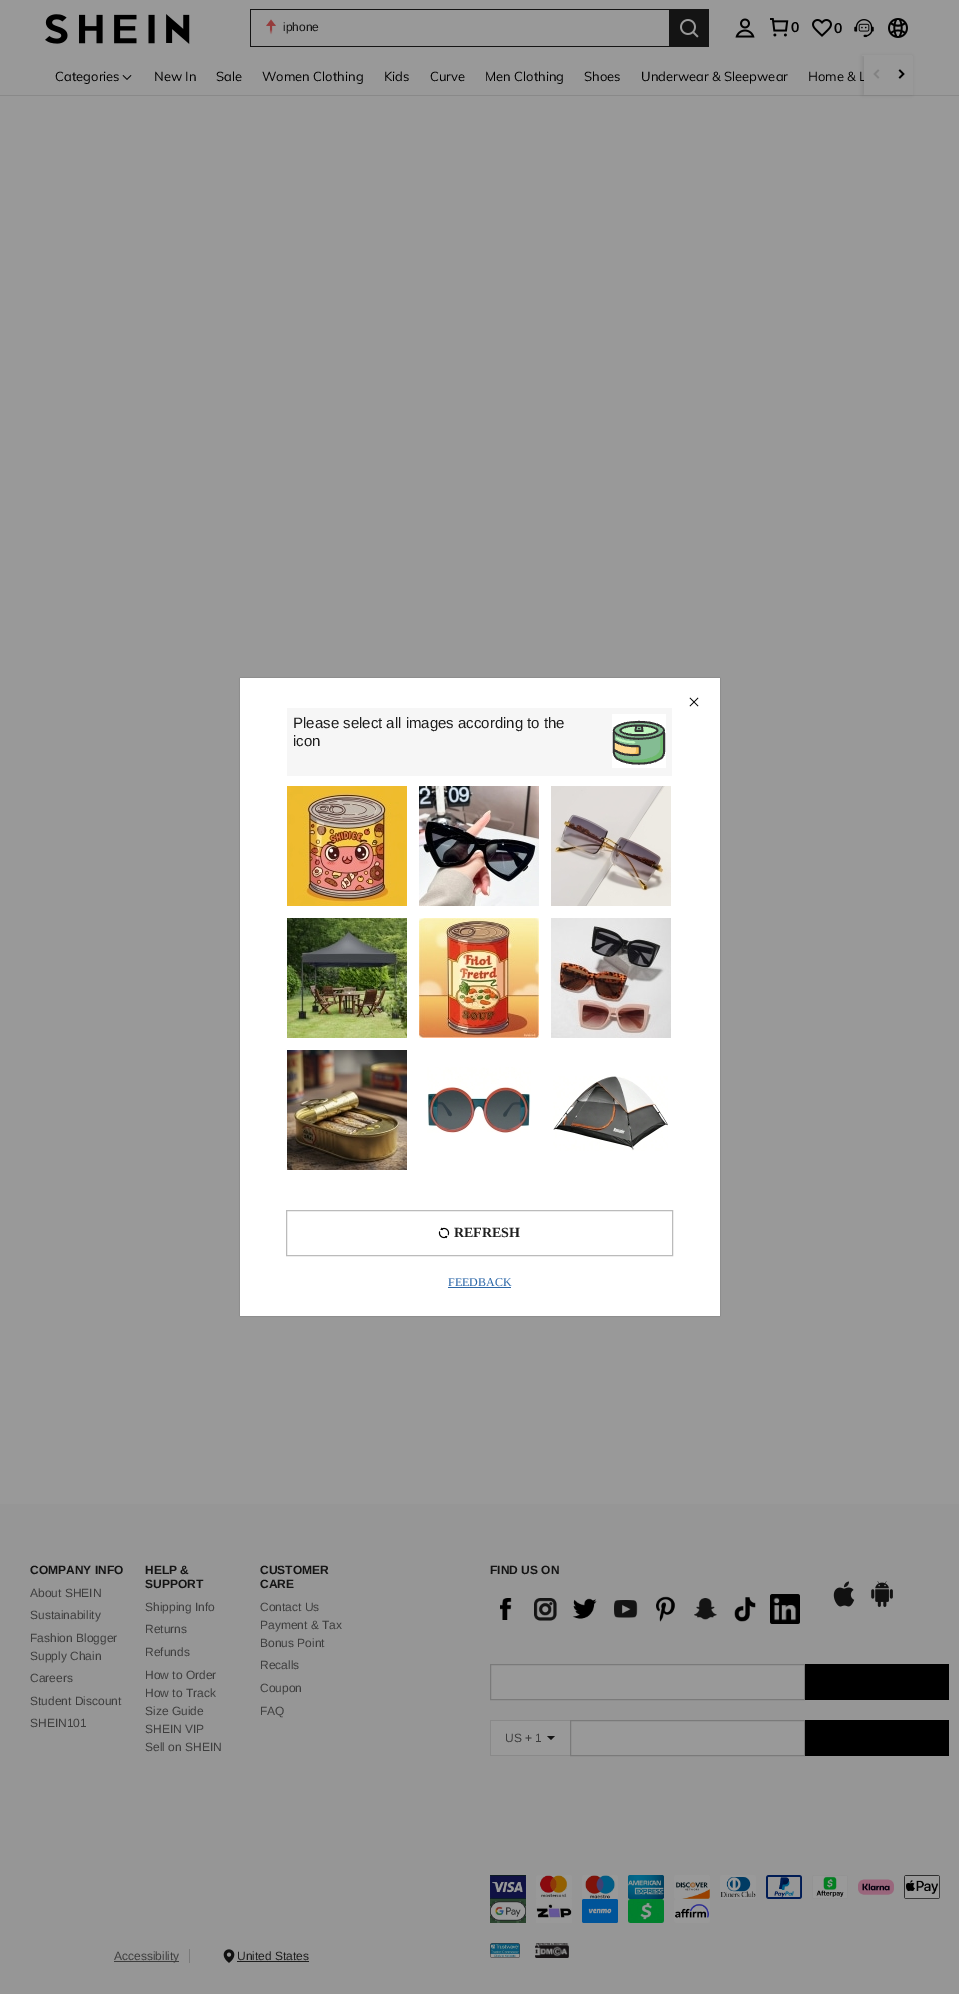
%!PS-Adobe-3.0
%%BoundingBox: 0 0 959 1994
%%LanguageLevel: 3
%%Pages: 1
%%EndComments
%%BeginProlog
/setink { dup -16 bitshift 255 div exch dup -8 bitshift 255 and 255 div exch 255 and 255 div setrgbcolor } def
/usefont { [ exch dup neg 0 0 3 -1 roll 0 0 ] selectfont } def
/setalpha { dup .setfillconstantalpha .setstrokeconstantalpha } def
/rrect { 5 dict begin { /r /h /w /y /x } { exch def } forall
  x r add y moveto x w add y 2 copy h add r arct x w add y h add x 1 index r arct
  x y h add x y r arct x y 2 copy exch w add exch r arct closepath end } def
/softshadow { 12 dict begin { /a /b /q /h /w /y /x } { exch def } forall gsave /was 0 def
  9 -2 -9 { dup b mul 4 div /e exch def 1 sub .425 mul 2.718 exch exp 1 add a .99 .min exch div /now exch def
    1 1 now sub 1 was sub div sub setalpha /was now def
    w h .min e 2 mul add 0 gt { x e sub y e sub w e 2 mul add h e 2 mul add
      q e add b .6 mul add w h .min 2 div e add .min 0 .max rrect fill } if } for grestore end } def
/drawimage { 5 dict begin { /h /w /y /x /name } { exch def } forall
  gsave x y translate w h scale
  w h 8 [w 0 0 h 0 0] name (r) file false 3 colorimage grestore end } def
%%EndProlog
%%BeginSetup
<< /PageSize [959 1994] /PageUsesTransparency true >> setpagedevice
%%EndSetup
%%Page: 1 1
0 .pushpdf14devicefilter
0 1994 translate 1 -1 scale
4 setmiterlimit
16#999999 setink
0 0 959 1994 rectfill
16#898989 setink
0 95 959 1 rectfill
16#000000 setink
862 56 50 39 0 1.5 0.08 softshadow
16#999999 setink
862 55 50 1 rectfill
(img1.raw) 45 14 145 30 drawimage
[
    [250 9 419 1 16#141414]
    [250 46 419 1 16#141414]
    [250 9 1 38 16#141414]
] { aload pop setink rectfill } forall
(img2.raw) 266 19 10 16 drawimage
/LiberationSans-Regular 12 usefont
283 31 moveto (iphone) show
669 9 40 38 rectfill
(img3.raw) 680 19 19 19 drawimage
(img4.raw) 735 18 20 20 drawimage
(img5.raw) 770 18 19 19 drawimage
/Muli-Bold 14 usefont
16#000000 setink
791 32 moveto (0) show
(img6.raw) 812 19 20 18 drawimage
834 33 moveto (0) show
(img7.raw) 854 19 20 19 drawimage
(img8.raw) 888 18 20 20 drawimage
/Muli-Regular 13 usefont
55 81 moveto (Categories) show
(img9.raw) 122 75 10 5 drawimage
[
    [(New In) 154 81]
    [(Sale) 216 81]
    [(Women Clothing) 262 81]
    [(Kids) 384 81]
    [(Curve) 430 81]
    [(Men Clothing) 485 81]
    [(Shoes) 584 81]
    [(Underwear & Sleepwear) 641 81]
    [(Home & L) 808 81]
] { aload pop moveto show } forall
16#999999 setink
864 56 49 39 rectfill
(img10.raw) 873 69 7 10 drawimage
(img11.raw) 898 69 7 10 drawimage
16#969696 setink
0 1504 959 490 rectfill
/LiberationSans-Bold 12 usefont
16#141414 setink
30 1574 moveto (COMPANY INFO) show
/LiberationSans-Regular 12 usefont
16#3D3D3D setink
[
    [(About SHEIN) 30 1597]
    [(Sustainability) 30 1619]
    [(Fashion Blogger) 30 1642]
    [(Supply Chain) 30 1660]
    [(Careers) 30 1682]
    [(Student Discount) 30 1705]
    [(SHEIN101) 30 1727]
] { aload pop moveto show } forall
/LiberationSans-Bold 12 usefont
16#141414 setink
145 1574 moveto (HELP &) show
145 1588 moveto (SUPPORT) show
/LiberationSans-Regular 12 usefont
16#3D3D3D setink
[
    [(Shipping Info) 145 1611]
    [(Returns) 145 1633]
    [(Refunds) 145 1656]
    [(How to Order) 145 1679]
    [(How to Track) 145 1697]
    [(Size Guide) 145 1715]
    [(SHEIN VIP) 145 1733]
    [(Sell on SHEIN) 145 1751]
] { aload pop moveto show } forall
/LiberationSans-Bold 12 usefont
16#141414 setink
260 1574 moveto (CUSTOMER) show
260 1588 moveto (CARE) show
/LiberationSans-Regular 12 usefont
16#3D3D3D setink
[
    [(Contact Us) 260 1611]
    [(Payment & Tax) 260 1629]
    [(Bonus Point) 260 1647]
    [(Recalls) 260 1669]
    [(Coupon) 260 1692]
    [(FAQ) 260 1715]
] { aload pop moveto show } forall
/LiberationSans-Bold 12 usefont
16#141414 setink
490 1574 moveto (FIND US ON) show
(img12.raw) 500 1598 12 22 drawimage
(img13.raw) 534 1598 23 23 drawimage
(img14.raw) 572 1598 25 21 drawimage
(img15.raw) 614 1600 24 18 drawimage
(img16.raw) 656 1596 20 26 drawimage
(img17.raw) 694 1598 23 22 drawimage
(img18.raw) 734 1597 22 25 drawimage
(img19.raw) 770 1594 30 30 drawimage
(img20.raw) 833 1581 22 26 drawimage
(img21.raw) 871 1581 22 26 drawimage
16#999999 setink
490.5 1664.5 moveto 804.5 1664.5 lineto 804.5 1699.5 lineto 490.5 1699.5 lineto closepath gsave fill grestore
16#7A7A7A setink
stroke
[
    [805 1664 144 36 16#000000]
    [491 1721 79 34 16#999999]
    [490 1720 80 1 16#898989]
    [490 1755 80 1 16#898989]
    [490 1720 1 36 16#898989]
] { aload pop setink rectfill } forall
/LiberationSans-Regular 12 usefont
16#3D3D3D setink
505 1742 moveto (US + 1) show
16#141414 setink
547 1736 moveto 555 1736 lineto 551 1740 lineto closepath fill
16#999999 setink
570.5 1720.5 moveto 804.5 1720.5 lineto 804.5 1755.5 lineto 570.5 1755.5 lineto closepath gsave fill grestore
16#7A7A7A setink
stroke
16#000000 setink
805 1720 144 36 rectfill
(img22.raw) 490 1875 36 24 drawimage
(img23.raw) 536 1875 36 24 drawimage
(img24.raw) 582 1875 36 24 drawimage
(img25.raw) 628 1875 36 24 drawimage
(img26.raw) 674 1875 36 24 drawimage
(img27.raw) 720 1875 36 24 drawimage
(img28.raw) 766 1875 36 24 drawimage
(img29.raw) 812 1875 36 24 drawimage
(img30.raw) 858 1879 36 16 drawimage
(img31.raw) 904 1875 36 24 drawimage
(img32.raw) 490 1899 36 24 drawimage
(img33.raw) 536 1899 36 24 drawimage
(img34.raw) 582 1899 36 24 drawimage
(img35.raw) 628 1899 36 24 drawimage
(img36.raw) 674 1899 36 24 drawimage
16#7A7A7A setink
189 1949 1 14 rectfill
16#3D3D3D setink
114 1961 65 1 rectfill
114 1960 moveto (Accessibility) show
(img37.raw) 223 1949 12 14 drawimage
16#1E1E1E setink
237 1960 moveto (United States) show
237 1961 72 1 rectfill
(img38.raw) 490 1943 30 15 drawimage
(img39.raw) 535 1943 34 15 drawimage
16#000000 setink
240 678 480 638 0 0.5 0.3 softshadow
16#FFFFFF setink
240 678 480 638 rectfill
(img40.raw) 689 697 10 10 drawimage
16#F6F6F6 setink
287 708 385 68 rectfill
/LiberationSans-Regular 15 usefont
16#1E1E1E setink
293 728 moveto (Please select all images according to the) show
293 746 moveto (icon) show
16#FFFFFF setink
612 714 54 54 rectfill
(img41.raw) 612 720 54 45 drawimage
(img42.raw) 287 786 120 120 drawimage
(img43.raw) 419 786 120 120 drawimage
(img44.raw) 551 786 120 120 drawimage
(img45.raw) 287 918 120 120 drawimage
(img46.raw) 419 918 120 120 drawimage
(img47.raw) 551 918 120 120 drawimage
(img48.raw) 287 1050 120 120 drawimage
(img49.raw) 427 1067 104 66 drawimage
(img50.raw) 553 1076 115 75 drawimage
16#BBBBBB setink
286.5 1210.5 386 45 rectstroke
(img51.raw) 438 1227 12 12 drawimage
/LiberationSerif-Bold 14 usefont
16#1E1E1E setink
454 1237 moveto (REFRESH) show
/LiberationSerif-Regular 12 usefont
16#2D68A8 setink
448 1286 moveto (FEEDBACK) show
448 1287 63 1 rectfill
.poppdf14devicefilter showpage
%%EOF
